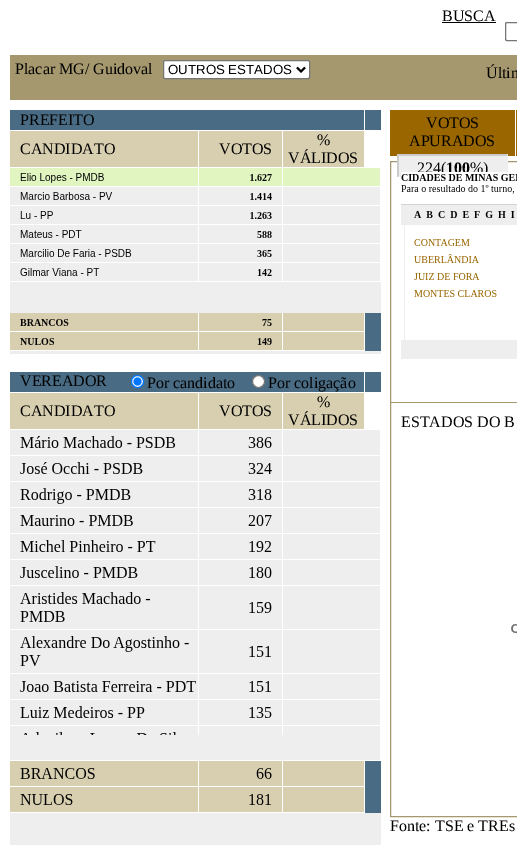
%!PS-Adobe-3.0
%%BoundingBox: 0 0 517 845
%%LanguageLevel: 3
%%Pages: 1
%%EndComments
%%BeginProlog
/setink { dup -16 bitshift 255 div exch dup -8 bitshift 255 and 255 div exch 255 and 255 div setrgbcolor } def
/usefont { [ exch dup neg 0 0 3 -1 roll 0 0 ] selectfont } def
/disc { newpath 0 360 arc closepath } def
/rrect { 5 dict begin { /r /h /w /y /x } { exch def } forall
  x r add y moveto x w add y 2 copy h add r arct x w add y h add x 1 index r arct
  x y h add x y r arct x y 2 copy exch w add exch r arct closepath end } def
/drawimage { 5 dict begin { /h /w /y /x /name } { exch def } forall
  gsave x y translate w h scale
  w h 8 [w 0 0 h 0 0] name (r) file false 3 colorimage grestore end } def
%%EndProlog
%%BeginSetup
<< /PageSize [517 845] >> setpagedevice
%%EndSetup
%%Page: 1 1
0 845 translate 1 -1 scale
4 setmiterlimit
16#FFFFFF setink
0 0 517 845 rectfill
/LiberationSerif-Regular 16 usefont
16#000000 setink
442 21 moveto (BUSCA) show
442 22 54 1 rectfill
16#767676 setink
505.5 22.5 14 18 1.5 rrect stroke
16#A5986E setink
10 55 507 45 rectfill
16#000000 setink
15 74 moveto (Placar MG/ Guidoval) show
16#FFFFFF setink
163.5 60.5 146 18 1.5 rrect gsave fill grestore
16#767676 setink
stroke
16#000000 setink
2 setlinewidth
297 67.5 moveto 301 71.5 lineto 305 67.5 lineto stroke
/LiberationSans-Regular 13.25 usefont
168 74 moveto (OUTROS ESTADOS) show
/LiberationSerif-Regular 16 usefont
486 78 moveto (Últim) show
16#496C84 setink
10 110 371 20 rectfill
16#000000 setink
20 125 moveto (PREFEITO) show
16#FFFFFF setink
364 110 1 20 rectfill
16#D8CFB0 setink
10 131 188 36 rectfill
16#000000 setink
20 154 moveto (CANDIDATO) show
16#D8CFB0 setink
199 131 83 36 rectfill
16#000000 setink
219 154 moveto (VOTOS) show
16#D8CFB0 setink
283 131 81 36 rectfill
16#000000 setink
317 145 moveto (%) show
288 163 moveto (VÁLIDOS) show
(img1.raw) 10 168 371 186 drawimage
16#496C84 setink
10 372 371 20 rectfill
16#FFFFFF setink
364 372 1 20 rectfill
16#000000 setink
20 386 moveto (VEREADOR) show
16#FFFFFF setink
137.5 381.5 6 disc gsave fill grestore
16#0075FF setink
1 setlinewidth
stroke
137.5 381.5 4 disc fill
16#000000 setink
147 388 moveto (Por candidato) show
16#FFFFFF setink
258.5 381.5 6 disc gsave fill grestore
16#767676 setink
stroke
16#000000 setink
268 388 moveto (Por coligação) show
16#D8CFB0 setink
10 393 188 36 rectfill
16#000000 setink
20 416 moveto (CANDIDATO) show
16#D8CFB0 setink
199 393 83 36 rectfill
16#000000 setink
219 416 moveto (VOTOS) show
16#D8CFB0 setink
283 393 81 36 rectfill
16#000000 setink
317 407 moveto (%) show
288 425 moveto (VÁLIDOS) show
(img2.raw) 10 430 371 415 drawimage
16#996600 setink
390 110 125 46 rectfill
16#000000 setink
426 128 moveto (VOTOS) show
409 146 moveto (APURADOS) show
16#A5986E setink
390.5 161.5 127 655 rectstroke
16#EEEEEE setink
397 154 111 23 rectfill
16#CBCBCB setink
397 154 moveto 508 154 lineto 507 156 lineto 399 156 lineto closepath fill
16#EEEEEE setink
508 154 moveto 508 177 lineto 507 176 lineto 507 156 lineto closepath fill
16#CBCBCB setink
397 177 moveto 397 154 lineto 399 156 lineto 399 176 lineto closepath fill
16#000000 setink
417 173 moveto (224\() show
/LiberationSerif-Bold 16 usefont
446 173 moveto (100) show
/LiberationSerif-Regular 16 usefont
470 173 moveto (%\)) show
16#996600 setink
516 110 1 46 rectfill
(img3.raw) 401 172 116 187 drawimage
16#A5986E setink
391 402 126 1 rectfill
16#000000 setink
401 427 moveto (ESTADOS DO B) show
(img4.raw) 511 624 6 9 drawimage
390 831 moveto (Fonte: TSE e TREs) show
showpage
%%EOF
